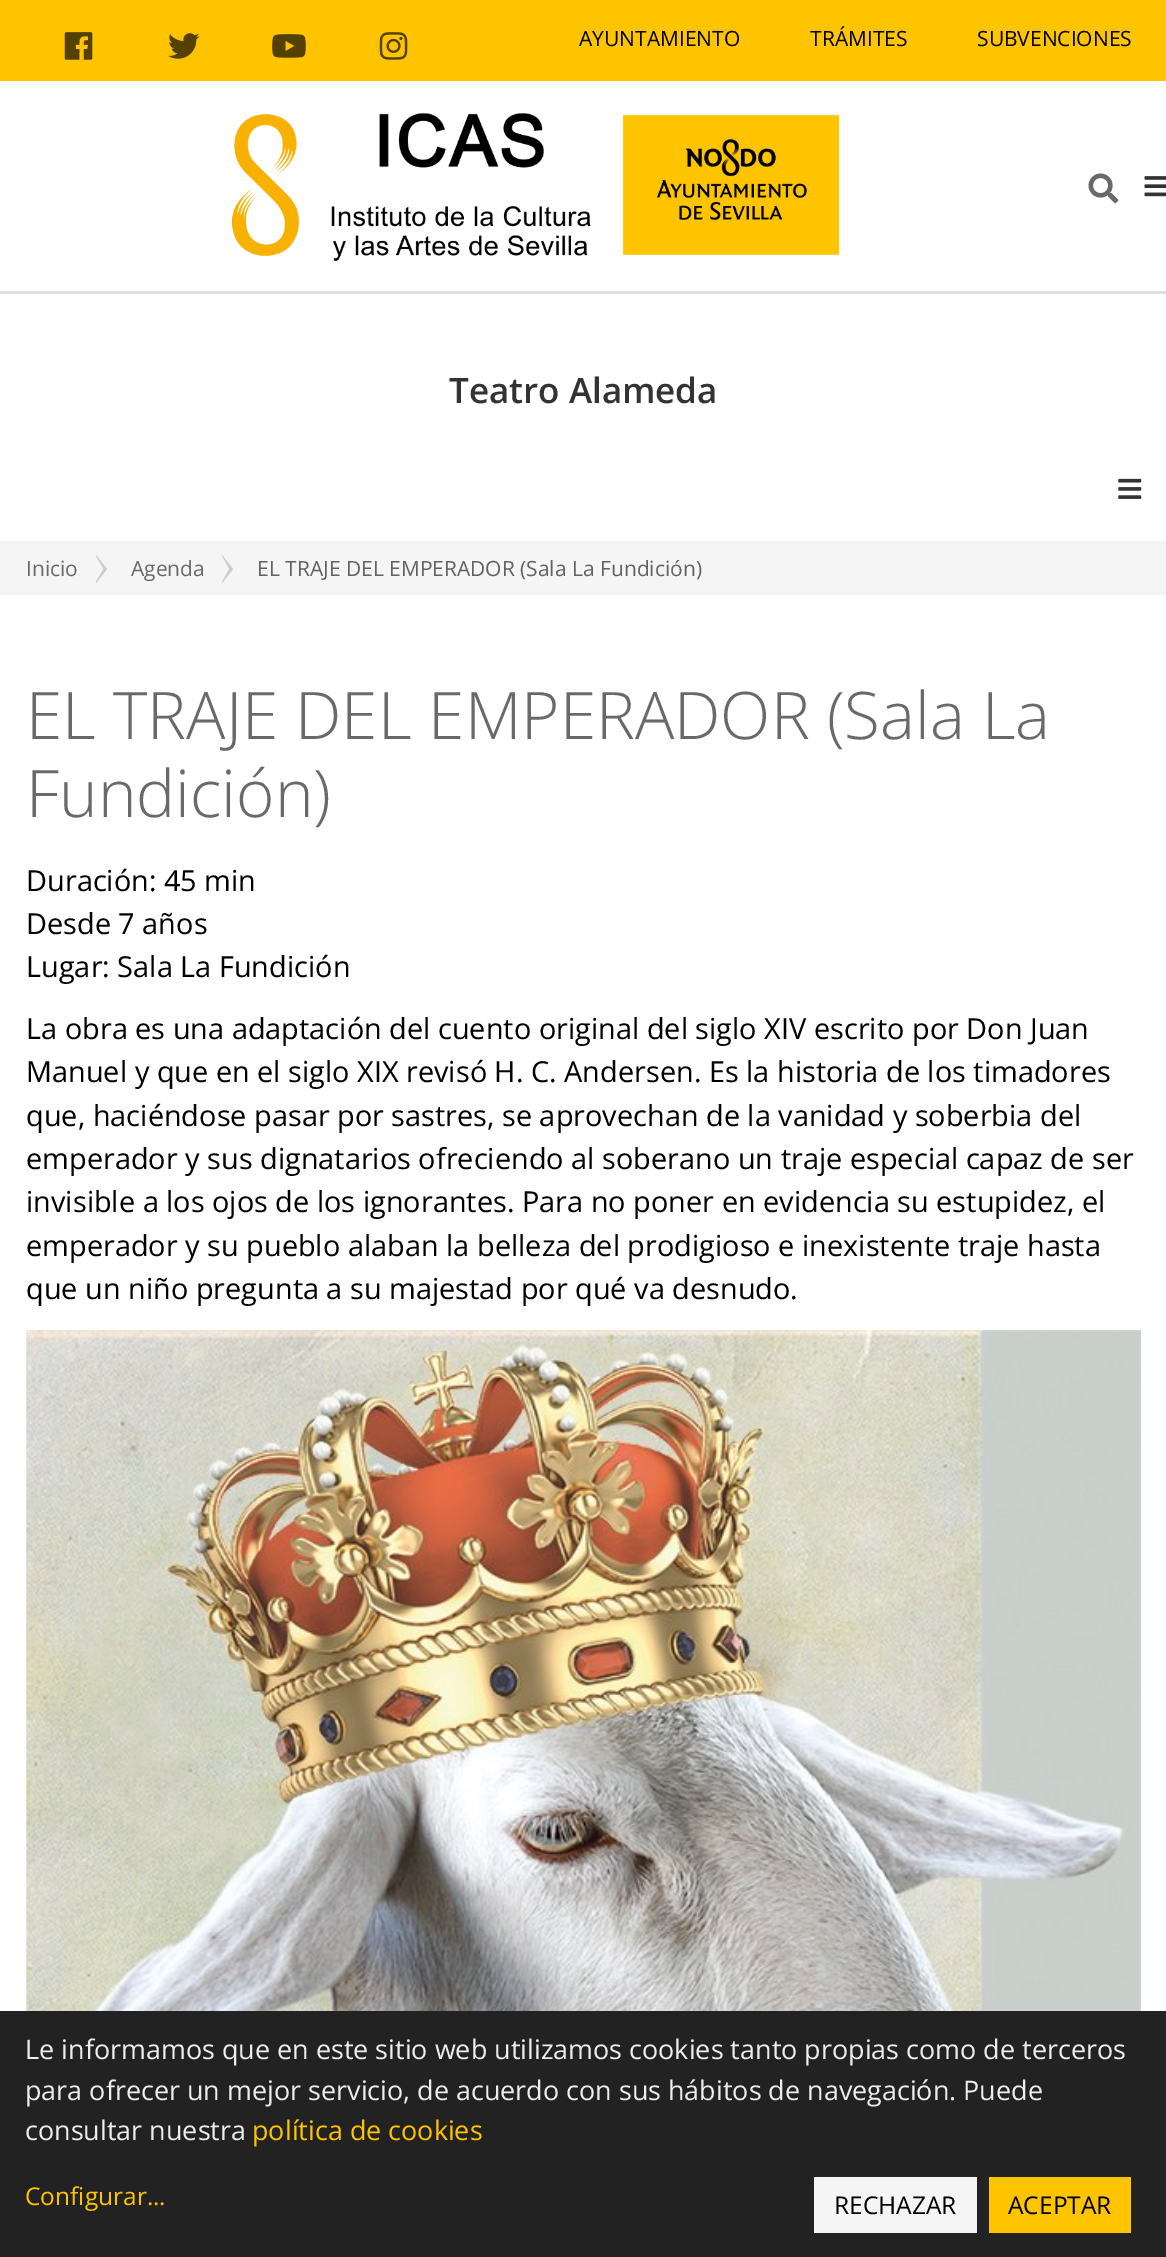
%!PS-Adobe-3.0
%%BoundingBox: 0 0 1166 2257
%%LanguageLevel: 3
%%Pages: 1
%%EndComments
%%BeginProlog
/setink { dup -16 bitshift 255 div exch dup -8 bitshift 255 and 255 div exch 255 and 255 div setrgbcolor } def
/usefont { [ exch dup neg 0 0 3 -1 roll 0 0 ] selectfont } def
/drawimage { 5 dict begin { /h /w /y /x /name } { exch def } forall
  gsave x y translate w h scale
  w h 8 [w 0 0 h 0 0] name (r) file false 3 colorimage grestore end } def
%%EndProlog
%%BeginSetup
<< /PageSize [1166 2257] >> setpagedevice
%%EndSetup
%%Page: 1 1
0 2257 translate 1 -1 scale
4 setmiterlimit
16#FFFFFF setink
0 0 1166 2257 rectfill
16#FFC400 setink
0 0 1166 81 rectfill
(img1.raw) 64 32 29 28 drawimage
(img2.raw) 168 33 32 26 drawimage
(img3.raw) 272 34 34 24 drawimage
(img4.raw) 379 32 29 28 drawimage
/OpenSans-Regular 21 usefont
16#000000 setink
[
    [(AYUNTAMIENTO) 579 46]
    [(TRÁMITES) 810 46]
    [(SUBVENCIONES) 977 46]
] { aload pop moveto show } forall
(img5.raw) 231 113 609 148 drawimage
(img6.raw) 1088 173 31 31 drawimage
(img7.raw) 1144 176 22 21 drawimage
16#E0E0E0 setink
0 291 1166 3 rectfill
/OpenSans-SemiBold 35 usefont
16#333333 setink
449 403 moveto (Teatro Alameda) show
(img8.raw) 1118 478 24 21 drawimage
16#F5F5F5 setink
0 541 1166 54 rectfill
/OpenSans-Regular 21 usefont
16#696969 setink
26 576 moveto (Inicio) show
16#CCCCCC setink
96 583 moveto 96 555 lineto 107 569 lineto closepath fill
16#F5F5F5 setink
96 581 moveto 96 556.5 lineto 103 569 lineto closepath fill
16#696969 setink
131 576 moveto (Agenda) show
16#CCCCCC setink
222 583 moveto 222 555 lineto 233 569 lineto closepath fill
16#F5F5F5 setink
222 581 moveto 222 556.5 lineto 229 569 lineto closepath fill
16#626262 setink
257 576 moveto (EL TRAJE DEL EMPERADOR \(Sala La Fundición\)) show
/OpenSans-Light 65.6 usefont
16#696969 setink
26 739 moveto (EL TRAJE DEL EMPERADOR \(Sala La) show
26 817 moveto (Fundición\)) show
/OpenSans-Regular 28.9 usefont
16#000000 setink
[
    [(Duración: 45 min) 26 891]
    [(Desde 7 años) 26 934]
    [(Lugar: Sala La Fundición) 26 977]
    [(La obra es una adaptación del cuento original del siglo XIV escrito por Don Juan) 26 1039]
    [(Manuel y que en el siglo XIX revisó H. C. Andersen. Es la historia de los timadores) 26 1082]
    [(que, haciéndose pasar por sastres, se aprovechan de la vanidad y soberbia del) 26 1126]
    [(emperador y sus dignatarios ofreciendo al soberano un traje especial capaz de ser) 26 1169]
    [(invisible a los ojos de los ignorantes. Para no poner en evidencia su estupidez, el) 26 1212]
    [(emperador y su pueblo alaban la belleza del prodigioso e inexistente traje hasta) 26 1256]
    [(que un niño pregunta a su majestad por qué va desnudo.) 26 1299]
] { aload pop moveto show } forall
(img9.raw) 26 1330 1115 681 drawimage
16#222222 setink
0 2011 1166 246 rectfill
/OpenSans-Regular 26.95 usefont
16#EEEEEE setink
[
    [(Le informamos que en este sitio web utilizamos cookies tanto propias como de terceros) 25 2059]
    [(para ofrecer un mejor servicio, de acuerdo con sus hábitos de navegación. Puede) 25 2100]
    [(consultar nuestra) 25 2140]
] { aload pop moveto show } forall
16#FFC400 setink
252 2140 moveto (política de cookies) show
/OpenSans-Regular 24.5 usefont
25 2205 moveto (Configurar...) show
16#F5F5F5 setink
814 2177 163 56 rectfill
16#000000 setink
834 2214 moveto (RECHAZAR) show
16#FFC400 setink
989 2177 142 56 rectfill
16#000000 setink
1008 2214 moveto (ACEPTAR) show
showpage
%%EOF
